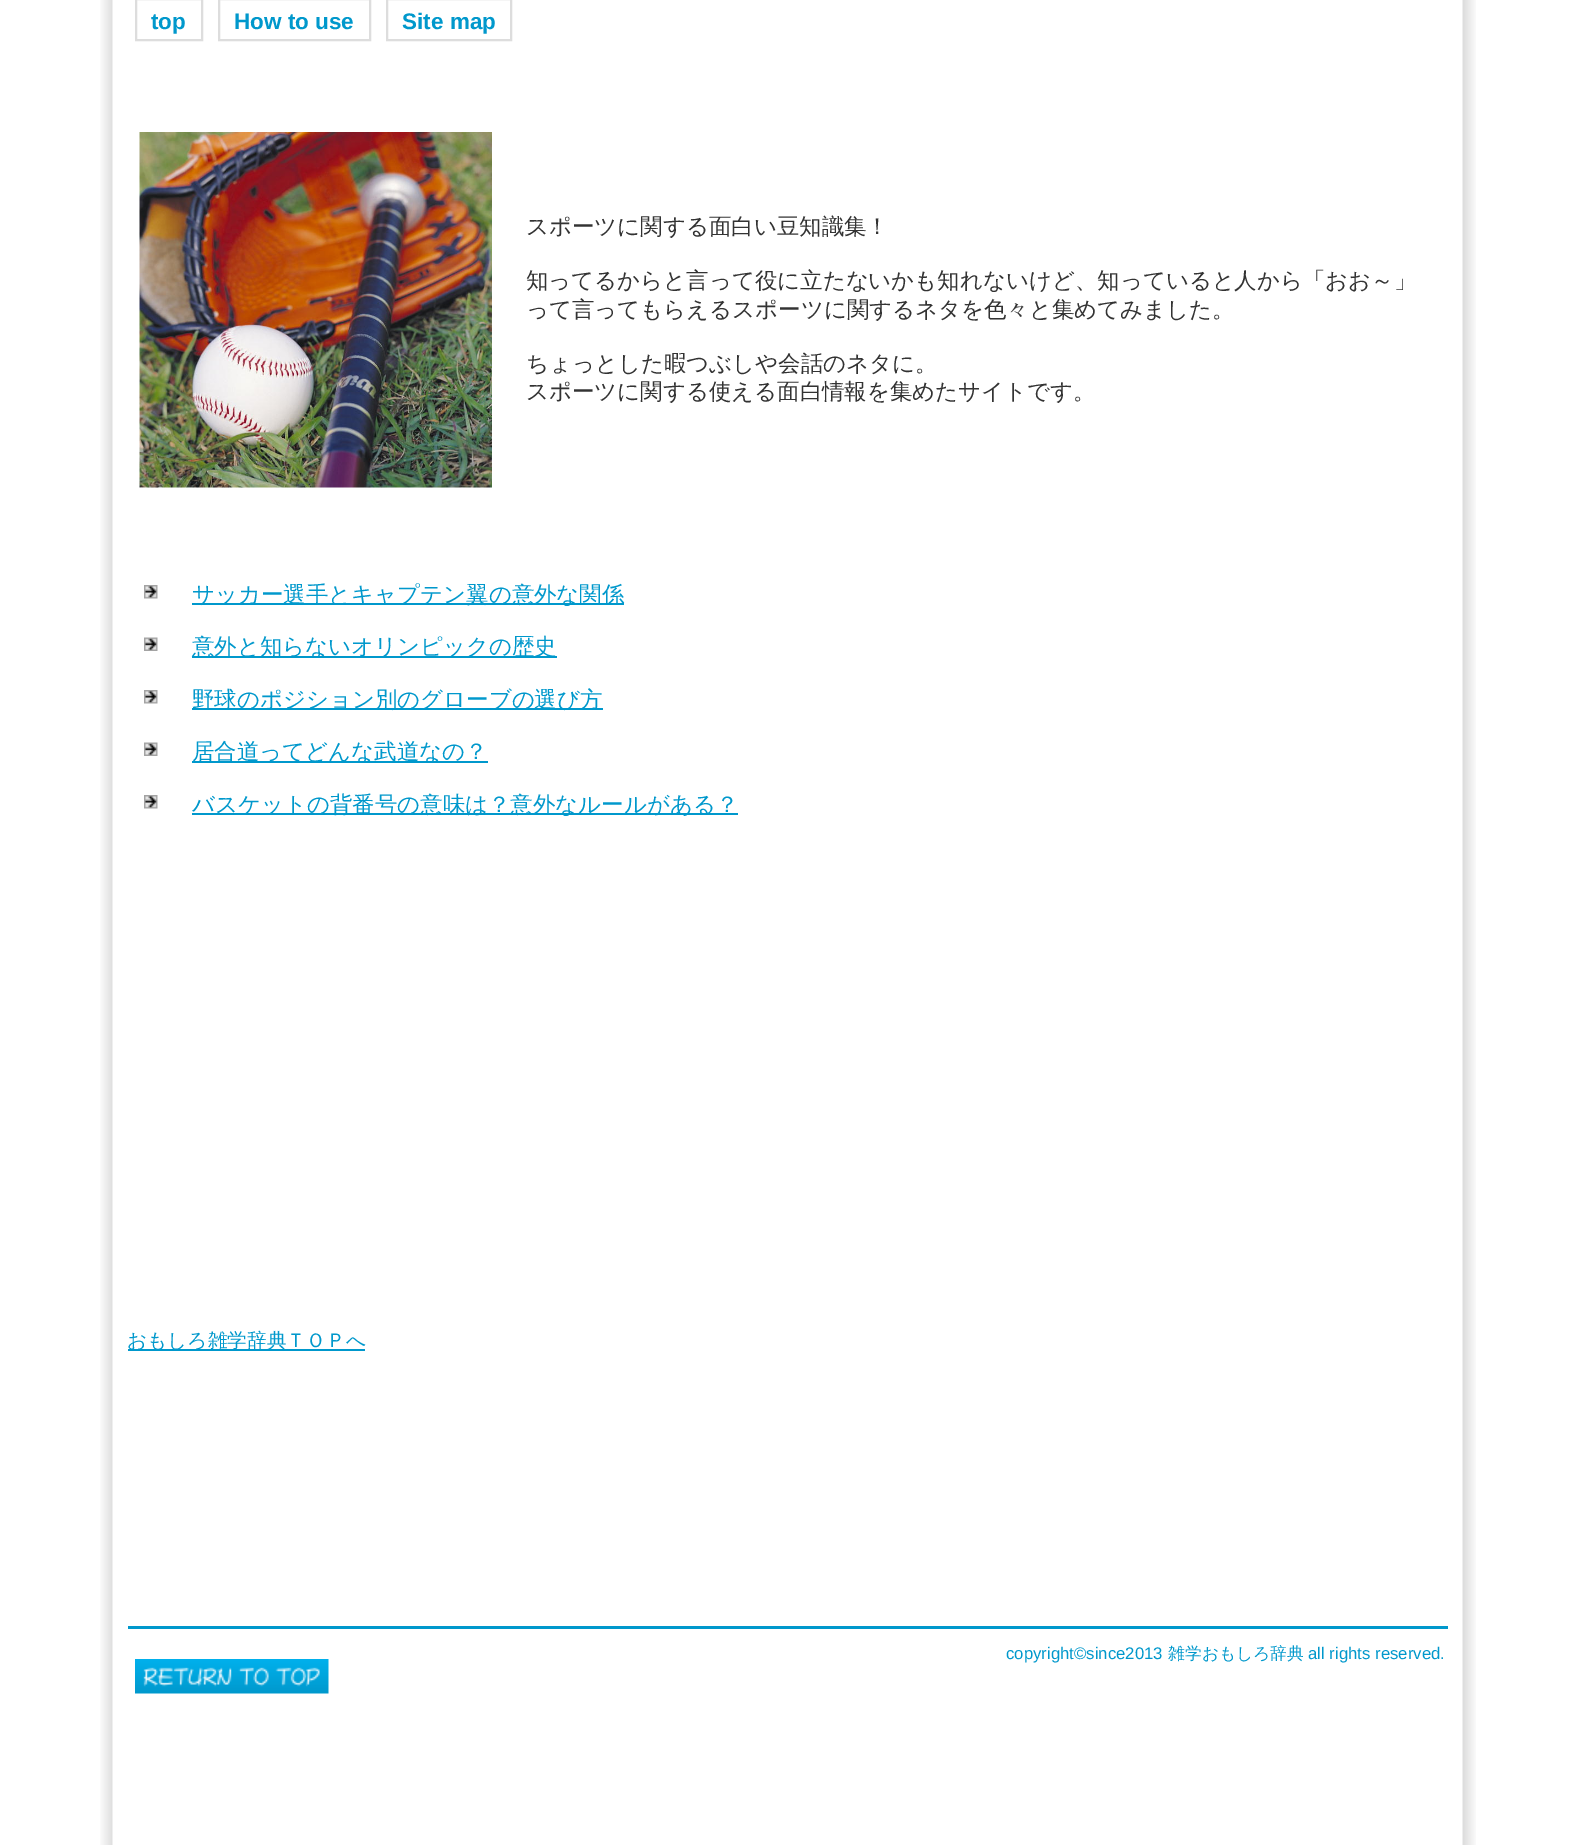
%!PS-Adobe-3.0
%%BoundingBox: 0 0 1573 1845
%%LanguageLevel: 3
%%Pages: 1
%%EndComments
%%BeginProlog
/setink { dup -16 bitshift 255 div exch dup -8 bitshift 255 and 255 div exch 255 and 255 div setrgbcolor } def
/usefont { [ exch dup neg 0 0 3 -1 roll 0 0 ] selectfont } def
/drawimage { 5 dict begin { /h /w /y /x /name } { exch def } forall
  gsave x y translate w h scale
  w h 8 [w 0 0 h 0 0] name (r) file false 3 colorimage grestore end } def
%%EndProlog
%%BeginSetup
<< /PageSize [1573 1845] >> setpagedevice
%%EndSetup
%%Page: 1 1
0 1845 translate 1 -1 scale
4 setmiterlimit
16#FFFFFF setink
0 0 1573 1845 rectfill
(img1.raw) 100 0 1376 1845 drawimage
16#DDDDDD setink
2 setlinewidth
136 -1 66 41 rectstroke
/LiberationSans-Bold 22.5 usefont
16#0098CC setink
151 29 moveto (top) show
16#DDDDDD setink
219 -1 151 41 rectstroke
16#0098CC setink
234 29 moveto (How to use) show
16#DDDDDD setink
387 -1 124 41 rectstroke
16#0098CC setink
402 29 moveto (Site map) show
(img2.raw) 139 132 353 356 drawimage
/WenQuanYiZenHei-Medium 22.45 usefont
16#333333 setink
[
    [(スポーツに関する面白い豆知識集！) 526 234]
    [(知ってるからと言って役に立たないかも知れないけど、知っていると人から「おお～」) 526 288]
    [(って言ってもらえるスポーツに関するネタを色々と集めてみました。) 526 317]
    [(ちょっとした暇つぶしや会話のネタに。) 526 371]
    [(スポーツに関する使える面白情報を集めたサイトです。) 526 399]
] { aload pop moveto show } forall
(img3.raw) 144 585 14 14 drawimage
16#0098CC setink
192 603 432 2 rectfill
192 602 moveto (サッカー選手とキャプテン翼の意外な関係) show
(img4.raw) 144 637 14 14 drawimage
192 656 365 2 rectfill
192 654 moveto (意外と知らないオリンピックの歴史) show
(img3.raw) 144 690 14 14 drawimage
192 708 411 2 rectfill
192 707 moveto (野球のポジション別のグローブの選び方) show
(img4.raw) 144 742 14 14 drawimage
192 761 296 2 rectfill
192 759 moveto (居合道ってどんな武道なの？) show
(img3.raw) 144 795 14 14 drawimage
192 813 546 2 rectfill
192 812 moveto (バスケットの背番号の意味は？意外なルールがある？) show
128 1349 237 2 rectfill
/WenQuanYiZenHei-Medium 19.7 usefont
127 1347 moveto (おもしろ雑学辞典ＴＯＰへ) show
128 1626 1320 3 rectfill
/LiberationSans-Regular 16.75 usefont
1006 1659 moveto (copyright©since2013) show
/WenQuanYiZenHei-Medium 16.75 usefont
1168 1659 moveto (雑学おもしろ辞典) show
/LiberationSans-Regular 16.75 usefont
1308 1659 moveto (all rights reserved.) show
(img5.raw) 135 1659 194 35 drawimage
showpage
%%EOF
